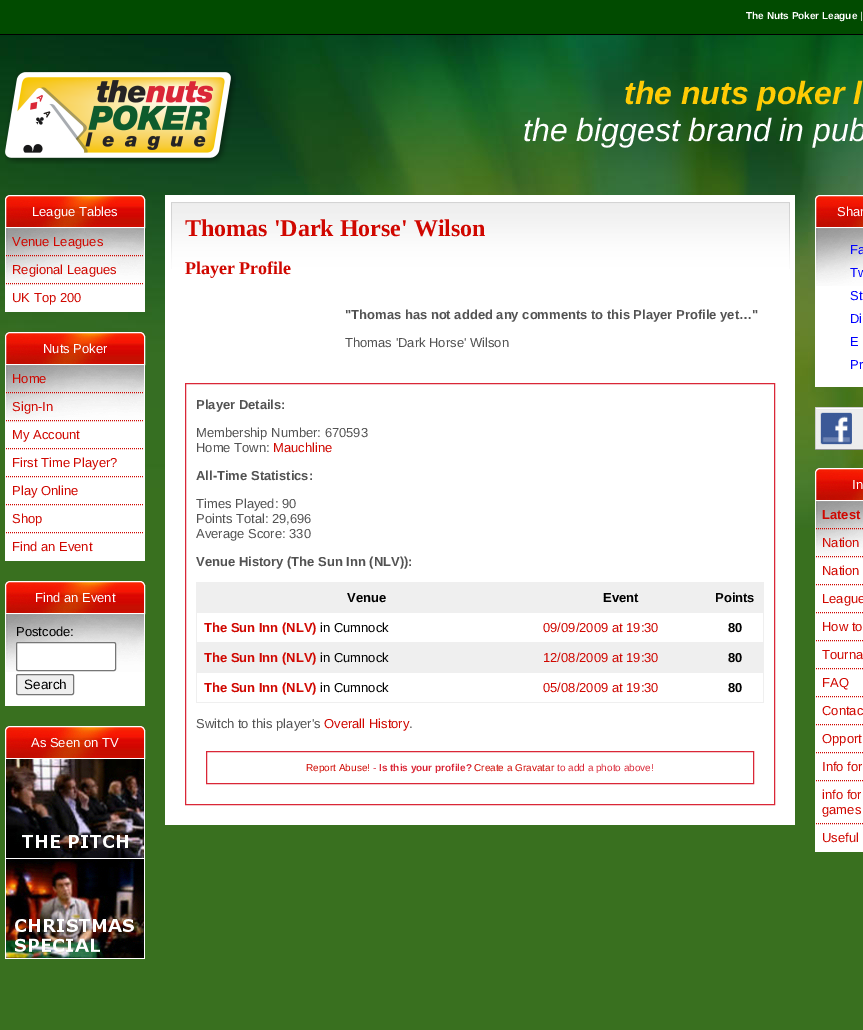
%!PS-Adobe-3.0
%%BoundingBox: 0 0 863 1030
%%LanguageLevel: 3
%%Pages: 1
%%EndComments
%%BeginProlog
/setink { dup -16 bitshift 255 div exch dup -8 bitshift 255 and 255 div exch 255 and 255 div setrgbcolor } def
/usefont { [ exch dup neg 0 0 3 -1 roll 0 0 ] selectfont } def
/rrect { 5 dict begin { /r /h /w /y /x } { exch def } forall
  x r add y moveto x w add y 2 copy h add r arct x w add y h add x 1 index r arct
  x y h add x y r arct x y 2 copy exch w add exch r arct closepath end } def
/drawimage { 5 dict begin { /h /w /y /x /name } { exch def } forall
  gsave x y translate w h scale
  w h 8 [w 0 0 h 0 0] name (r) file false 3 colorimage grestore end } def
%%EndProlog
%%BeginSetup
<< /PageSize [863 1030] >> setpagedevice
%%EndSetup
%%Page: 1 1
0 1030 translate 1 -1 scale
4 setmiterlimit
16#FFFFFF setink
0 0 863 1030 rectfill
(img1.raw) 0 35 863 995 drawimage
16#014B00 setink
0 0 863 34 rectfill
16#000000 setink
0 34 863 1 rectfill
/LiberationSans-Bold 10 usefont
16#FFFFFF setink
746 19 moveto (The Nuts Poker League) show
/LiberationSans-Regular 10 usefont
860 19 moveto (|) show
(img2.raw) 5 70 231 94 drawimage
/LiberationSans-BoldItalic 32 usefont
16#FFCB05 setink
624 104 moveto (the nuts poker l) show
/LiberationSans-Italic 32 usefont
16#FFFFFF setink
523 141 moveto (the biggest brand in pub) show
(img3.raw) 5 195 140 32 drawimage
10 195.5 moveto 140 195.5 lineto 142.5 195.5 144.5 197.5 144.5 200 curveto 144.5 227.5 lineto 5.5 227.5 lineto 5.5 200 lineto 5.5 197.5 7.5 195.5 10 195.5 curveto closepath stroke
/LiberationSans-Regular 13 usefont
32 216 moveto (League Tables) show
5 228 140 84 rectfill
(img4.raw) 6 228 138 58 drawimage
16#D00700 setink
[1 1] 0 setdash
6 255.5 moveto 144 255.5 lineto stroke
12 246 moveto (Venue Leagues) show
6 283.5 moveto 144 283.5 lineto stroke
12 274 moveto (Regional Leagues) show
12 302 moveto (UK Top 200) show
(img5.raw) 5 332 140 32 drawimage
16#FFFFFF setink
[] 0 setdash
10 332.5 moveto 140 332.5 lineto 142.5 332.5 144.5 334.5 144.5 337 curveto 144.5 364.5 lineto 5.5 364.5 lineto 5.5 337 lineto 5.5 334.5 7.5 332.5 10 332.5 curveto closepath stroke
43 353 moveto (Nuts Poker) show
5 365 140 196 rectfill
(img4.raw) 6 365 138 58 drawimage
16#D00700 setink
[1 1] 0 setdash
6 392.5 moveto 144 392.5 lineto stroke
12 383 moveto (Home) show
6 420.5 moveto 144 420.5 lineto stroke
12 411 moveto (Sign-In) show
6 448.5 moveto 144 448.5 lineto stroke
12 439 moveto (My Account) show
6 476.5 moveto 144 476.5 lineto stroke
12 467 moveto (First Time Player?) show
6 504.5 moveto 144 504.5 lineto stroke
12 495 moveto (Play Online) show
6 532.5 moveto 144 532.5 lineto stroke
12 523 moveto (Shop) show
12 551 moveto (Find an Event) show
(img6.raw) 5 581 140 32 drawimage
16#FFFFFF setink
[] 0 setdash
10 581.5 moveto 140 581.5 lineto 142.5 581.5 144.5 583.5 144.5 586 curveto 144.5 613.5 lineto 5.5 613.5 lineto 5.5 586 lineto 5.5 583.5 7.5 581.5 10 581.5 curveto closepath stroke
35 602 moveto (Find an Event) show
5 614 140 92 rectfill
(img4.raw) 6 614 138 58 drawimage
16#000000 setink
16 636 moveto (Postcode:) show
16#FFFFFF setink
16.5 642.5 99 28 1.5 rrect gsave fill grestore
16#767676 setink
stroke
16#EFEFEF setink
16.5 674.5 57 20 1.5 rrect gsave fill grestore
16#767676 setink
stroke
/LiberationSans-Regular 13.5 usefont
16#000000 setink
24 689 moveto (Search) show
(img6.raw) 5 726 140 32 drawimage
16#FFFFFF setink
10 726.5 moveto 140 726.5 lineto 142.5 726.5 144.5 728.5 144.5 731 curveto 144.5 758.5 lineto 5.5 758.5 lineto 5.5 731 lineto 5.5 728.5 7.5 726.5 10 726.5 curveto closepath stroke
/LiberationSans-Regular 13 usefont
31 747 moveto (As Seen on TV) show
5 759 140 200 rectfill
(img7.raw) 6 759 138 99 drawimage
(img8.raw) 6 859 138 99 drawimage
165 195 630 630 rectfill
(img9.raw) 171 202 619 67 drawimage
/LiberationSerif-Bold 24 usefont
16#D00700 setink
185 236 moveto (Thomas 'Dark Horse' Wilson) show
/LiberationSerif-Bold 18 usefont
185 274 moveto (Player Profile) show
/LiberationSans-Bold 13 usefont
16#525252 setink
345 319 moveto ("Thomas has not added any comments to this Player Profile yet…") show
/LiberationSans-Regular 13 usefont
345 347 moveto (Thomas 'Dark Horse' Wilson) show
16#DA2737 setink
185.5 383.5 589 421 rectstroke
/LiberationSans-Bold 13 usefont
16#525252 setink
196 409 moveto (Player Details:) show
/LiberationSans-Regular 13 usefont
196 437 moveto (Membership Number: 670593) show
196 452 moveto (Home Town:) show
16#D00700 setink
273 452 moveto (Mauchline) show
/LiberationSans-Bold 13 usefont
16#525252 setink
196 480 moveto (All-Time Statistics:) show
/LiberationSans-Regular 13 usefont
[
    [(Times Played: 90) 196 508]
    [(Points Total: 29,696) 196 523]
    [(Average Score: 330) 196 538]
] { aload pop moveto show } forall
/LiberationSans-Bold 13 usefont
196 566 moveto (Venue History \(The Sun Inn \(NLV\)\):) show
16#EFEFEF setink
196 582 568 121 rectfill
16#000000 setink
[
    [(Venue) 347 602]
    [(Event) 603 602]
    [(Points) 715 602]
] { aload pop moveto show } forall
16#FFFFFF setink
197 613 566 29 rectfill
16#D00700 setink
204 632 moveto (The Sun Inn \(NLV\)) show
/LiberationSans-Regular 13 usefont
16#000000 setink
320 632 moveto (in Cumnock) show
16#D00700 setink
543 632 moveto (09/09/2009 at 19:30) show
/LiberationSans-Bold 13 usefont
16#000000 setink
728 632 moveto (80) show
16#D00700 setink
204 662 moveto (The Sun Inn \(NLV\)) show
/LiberationSans-Regular 13 usefont
16#000000 setink
320 662 moveto (in Cumnock) show
16#D00700 setink
543 662 moveto (12/08/2009 at 19:30) show
/LiberationSans-Bold 13 usefont
16#000000 setink
728 662 moveto (80) show
16#FFFFFF setink
197 673 566 29 rectfill
16#D00700 setink
204 692 moveto (The Sun Inn \(NLV\)) show
/LiberationSans-Regular 13 usefont
16#000000 setink
320 692 moveto (in Cumnock) show
16#D00700 setink
543 692 moveto (05/08/2009 at 19:30) show
/LiberationSans-Bold 13 usefont
16#000000 setink
728 692 moveto (80) show
/LiberationSans-Regular 13 usefont
16#525252 setink
196 728 moveto (Switch to this player's) show
16#D00700 setink
324 728 moveto (Overall History) show
16#525252 setink
409 728 moveto (.) show
16#DA2737 setink
206.5 751.5 547 32 rectstroke
/LiberationSans-Regular 10 usefont
16#D00700 setink
306 771 moveto (Report Abuse!) show
16#DA2737 setink
373 771 moveto (-) show
/LiberationSans-Bold 10 usefont
379 771 moveto (Is this your profile?) show
/LiberationSans-Regular 10 usefont
16#D00700 setink
474 771 moveto (Create a Gravatar) show
16#DA2737 setink
557 771 moveto (to add a photo above!) show
(img10.raw) 815 195 48 32 drawimage
16#FFFFFF setink
820 195.5 moveto 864 195.5 lineto 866.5 195.5 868.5 197.5 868.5 200 curveto 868.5 227.5 lineto 815.5 227.5 lineto 815.5 200 lineto 815.5 197.5 817.5 195.5 820 195.5 curveto closepath stroke
/LiberationSans-Regular 13 usefont
837 216 moveto (Shar) show
815 228 48 159 rectfill
(img11.raw) 816 228 47 58 drawimage
16#0000FF setink
[
    [(Fa) 850 254]
    [(Tw) 850 277]
    [(St) 850 300]
    [(Di) 850 323]
    [(E) 850 346]
    [(Pr) 850 369]
] { aload pop moveto show } forall
(img12.raw) 815 407 48 43 drawimage
(img13.raw) 815 468 48 32 drawimage
16#FFFFFF setink
820 468.5 moveto 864 468.5 lineto 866.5 468.5 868.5 470.5 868.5 473 curveto 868.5 500.5 lineto 815.5 500.5 lineto 815.5 473 lineto 815.5 470.5 817.5 468.5 820 468.5 curveto closepath stroke
852 489 moveto (In) show
815 501 48 351 rectfill
(img11.raw) 816 501 47 58 drawimage
16#D00700 setink
[1 1] 0 setdash
816 528.5 moveto 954 528.5 lineto 816 556.5 moveto 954 556.5 lineto 816 584.5 moveto 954 584.5 lineto stroke
/LiberationSans-Bold 13 usefont
822 519 moveto (Latest) show
/LiberationSans-Regular 13 usefont
822 547 moveto (Nation) show
822 575 moveto (Nation) show
816 612.5 moveto 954 612.5 lineto 816 640.5 moveto 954 640.5 lineto 816 668.5 moveto 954 668.5 lineto stroke
[
    [(League) 822 603]
    [(How to) 822 631]
    [(Tourna) 822 659]
] { aload pop moveto show } forall
816 696.5 moveto 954 696.5 lineto 816 724.5 moveto 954 724.5 lineto 816 752.5 moveto 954 752.5 lineto stroke
[
    [(FAQ) 822 687]
    [(Contac) 822 715]
    [(Opport) 822 743]
] { aload pop moveto show } forall
816 780.5 moveto 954 780.5 lineto 816 823.5 moveto 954 823.5 lineto stroke
[
    [(Info for) 822 771]
    [(info for) 822 799]
    [(games) 822 814]
    [(Useful) 822 842]
] { aload pop moveto show } forall
showpage
%%EOF
